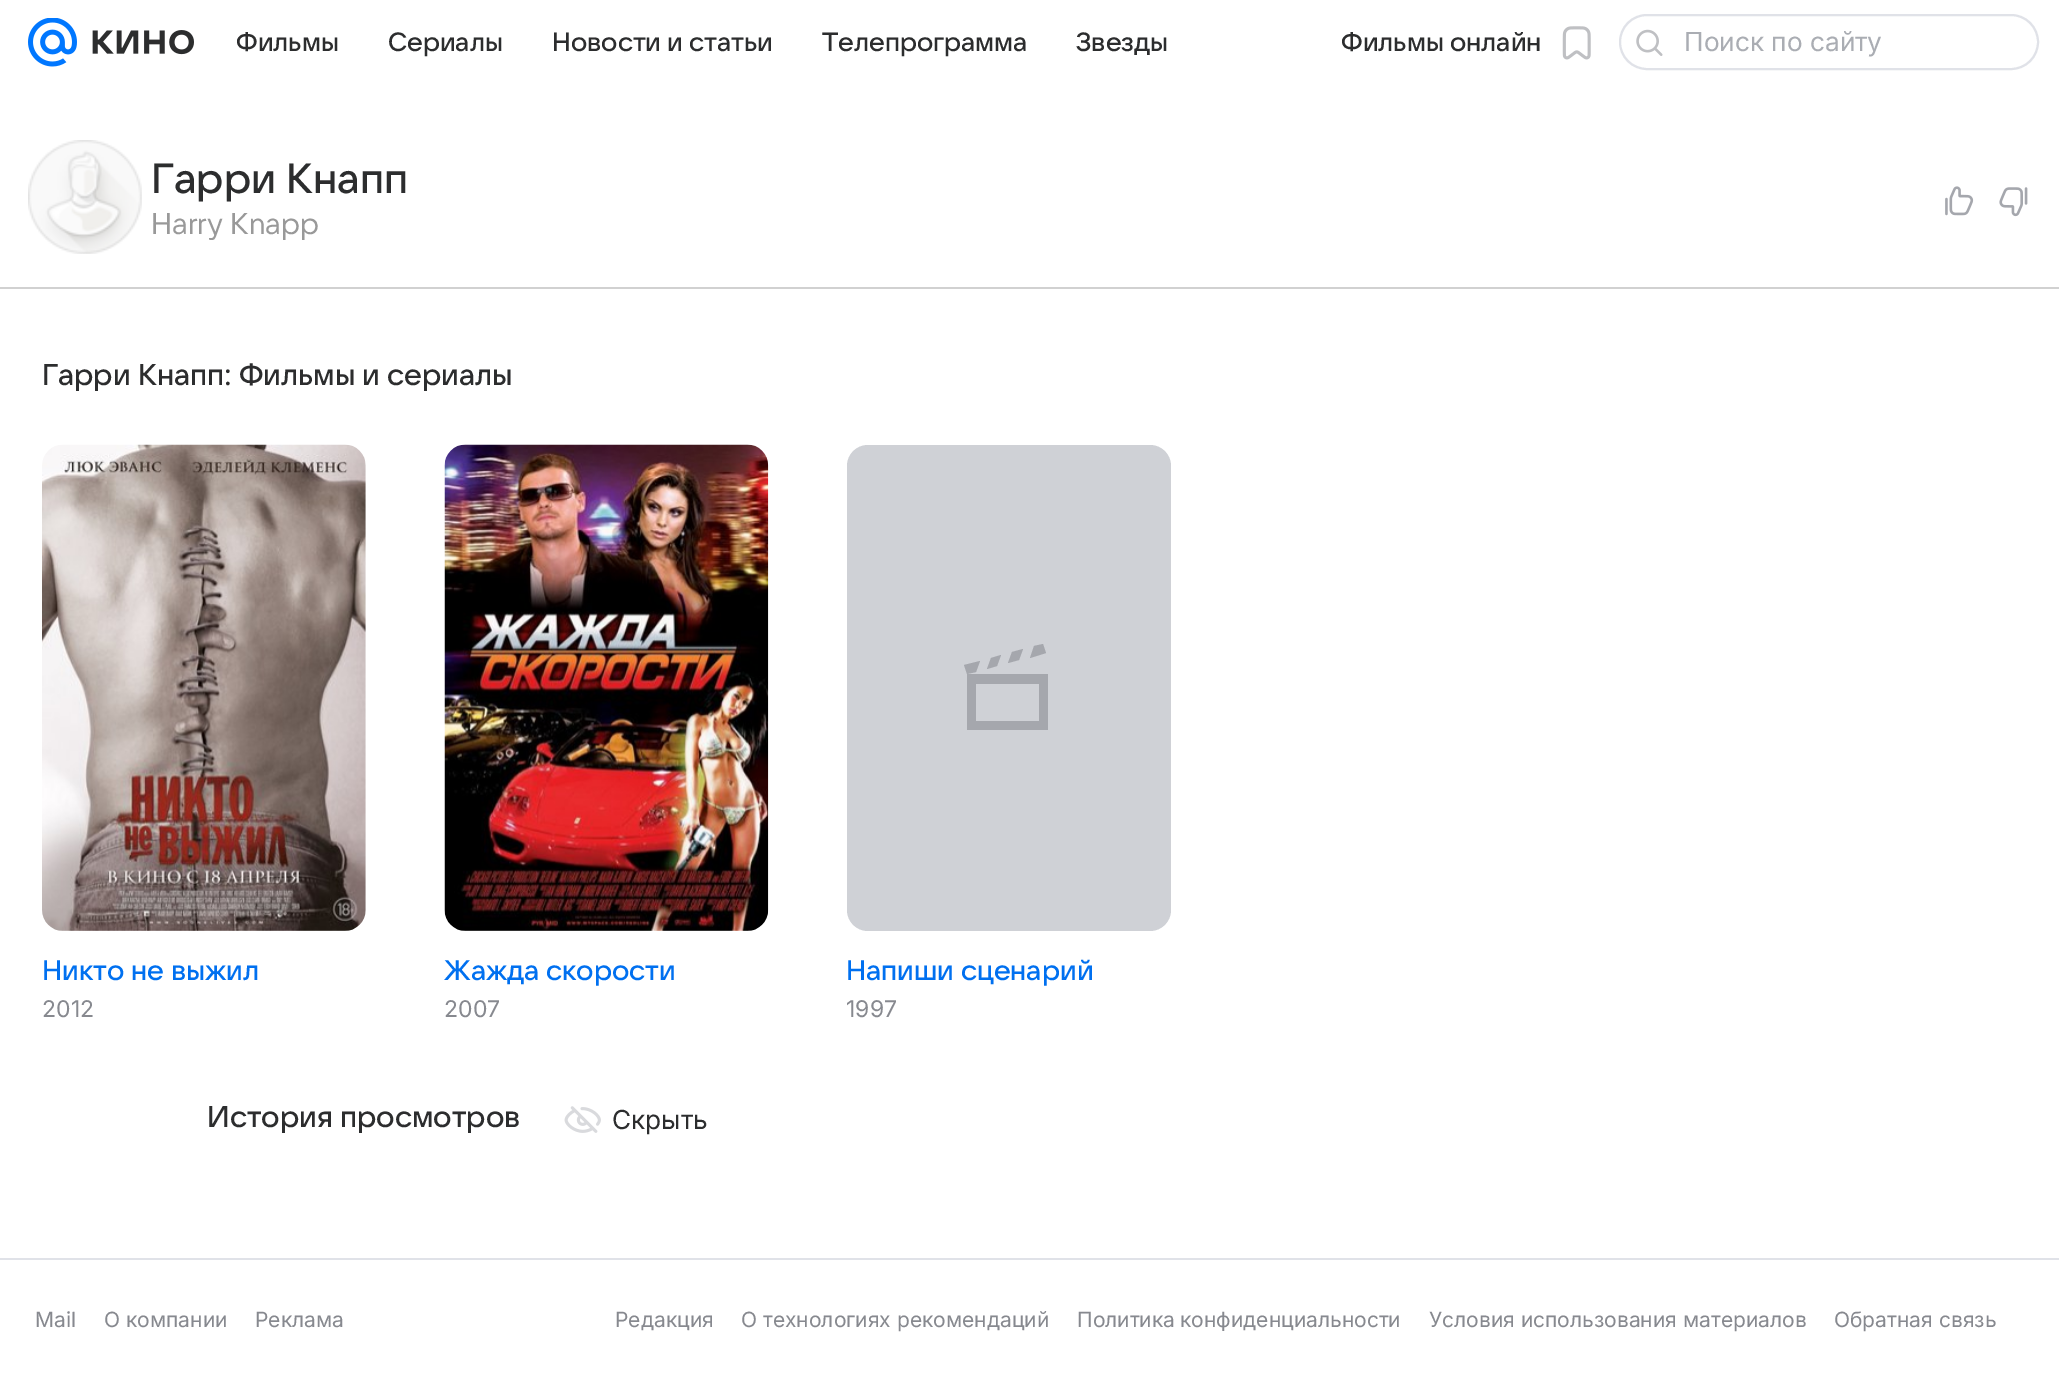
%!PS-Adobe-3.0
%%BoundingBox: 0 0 2059 1398
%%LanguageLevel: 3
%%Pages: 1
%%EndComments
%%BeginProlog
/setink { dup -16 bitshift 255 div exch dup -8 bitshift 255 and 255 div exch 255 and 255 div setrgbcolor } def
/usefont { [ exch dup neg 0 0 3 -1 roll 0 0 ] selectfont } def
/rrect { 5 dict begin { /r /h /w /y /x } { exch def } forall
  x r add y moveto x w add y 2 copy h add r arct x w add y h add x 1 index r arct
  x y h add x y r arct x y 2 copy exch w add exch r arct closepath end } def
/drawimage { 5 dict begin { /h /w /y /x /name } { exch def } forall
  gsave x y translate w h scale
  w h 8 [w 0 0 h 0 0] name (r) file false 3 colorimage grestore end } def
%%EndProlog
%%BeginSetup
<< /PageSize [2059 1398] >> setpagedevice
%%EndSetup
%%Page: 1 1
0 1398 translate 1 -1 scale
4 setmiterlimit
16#FFFFFF setink
0 0 2059 1398 rectfill
(img1.raw) 28 18 49 49 drawimage
(img2.raw) 92 30 102 25 drawimage
/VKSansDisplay-Medium 26.25 usefont
16#2C2D2E setink
[
    [(Фильмы) 236 51]
    [(Сериалы) 388 51]
    [(Новости и статьи) 552 51]
    [(Телепрограмма) 822 51]
    [(Звезды) 1076 51]
    [(Фильмы онлайн) 1341 51]
] { aload pop moveto show } forall
(img3.raw) 1562 26 29 34 drawimage
16#E0E2E8 setink
2 setlinewidth
1620 15 418 54 27 rrect stroke
(img4.raw) 1636 29 27 27 drawimage
/Inter-Regular 26.25 usefont
16#AAADB3 setink
1684 51 moveto (Поиск по сайту) show
16#D1D1D1 setink
0 287 2059 2 rectfill
(img5.raw) 28 140 114 114 drawimage
/VKSansDisplay-Medium 42 usefont
16#2C2D2E setink
151 193 moveto (Гарри Кнапп) show
/VKSansDisplay-Regular 29.75 usefont
16#999999 setink
151 234 moveto (Harry Knapp) show
(img6.raw) 1945 186 29 30 drawimage
(img7.raw) 1999 187 29 30 drawimage
/VKSansDisplay-Medium 29.75 usefont
16#2C2D2E setink
42 385 moveto (Гарри Кнапп: Фильмы и сериалы) show
(img8.raw) 42 444 324 487 drawimage
/VKSansDisplay-Medium 28 usefont
16#0070F0 setink
42 980 moveto (Никто не выжил) show
/Inter-Regular 23 usefont
16#87898F setink
42 1017 moveto (2012) show
(img9.raw) 444 444 325 487 drawimage
/VKSansDisplay-Medium 28 usefont
16#0070F0 setink
444 980 moveto (Жажда скорости) show
/Inter-Regular 23 usefont
16#87898F setink
444 1017 moveto (2007) show
16#CFD1D6 setink
847 445 324 486 21 rrect fill
16#A5A7AD setink
1046 653 moveto 1030 658 lineto 1034 646 lineto 1043 644 lineto closepath 997 666 moveto 987 669 lineto 991 658 lineto 1001 655 lineto closepath 964 665 moveto 980 661 lineto 976 672 lineto 967 674 lineto closepath 1023 649 moveto 1012 652 lineto 1008 663 lineto 1019 660 lineto closepath 976 684 moveto 1039 684 lineto 1039 721 lineto 976 721 lineto closepath 967 730 moveto 967 674 lineto 1048 674 lineto 1048 730 lineto closepath eofill
/VKSansDisplay-Medium 28 usefont
16#0070F0 setink
846 980 moveto (Напиши сценарий) show
/Inter-Regular 23 usefont
16#87898F setink
846 1017 moveto (1997) show
/VKSansDisplay-Medium 29.75 usefont
16#2C2D2E setink
207 1127 moveto (История просмотров) show
(img10.raw) 564 1106 37 27 drawimage
/Inter-Regular 26.25 usefont
612 1129 moveto (Скрыть) show
16#E0E2E8 setink
0 1258 2059 2 rectfill
/Inter-Regular 21 usefont
16#87898F setink
[
    [(Mail) 35 1327]
    [(О компании) 104 1327]
    [(Реклама) 255 1327]
    [(Редакция) 615 1327]
    [(О технологиях рекомендаций) 741 1327]
] { aload pop moveto show } forall
1077 1327 moveto -1 0 32 (Политика конфиденциальности) widthshow
1429 1327 moveto (Условия использования материалов) show
1834 1327 moveto (Обратная связь) show
showpage
%%EOF
